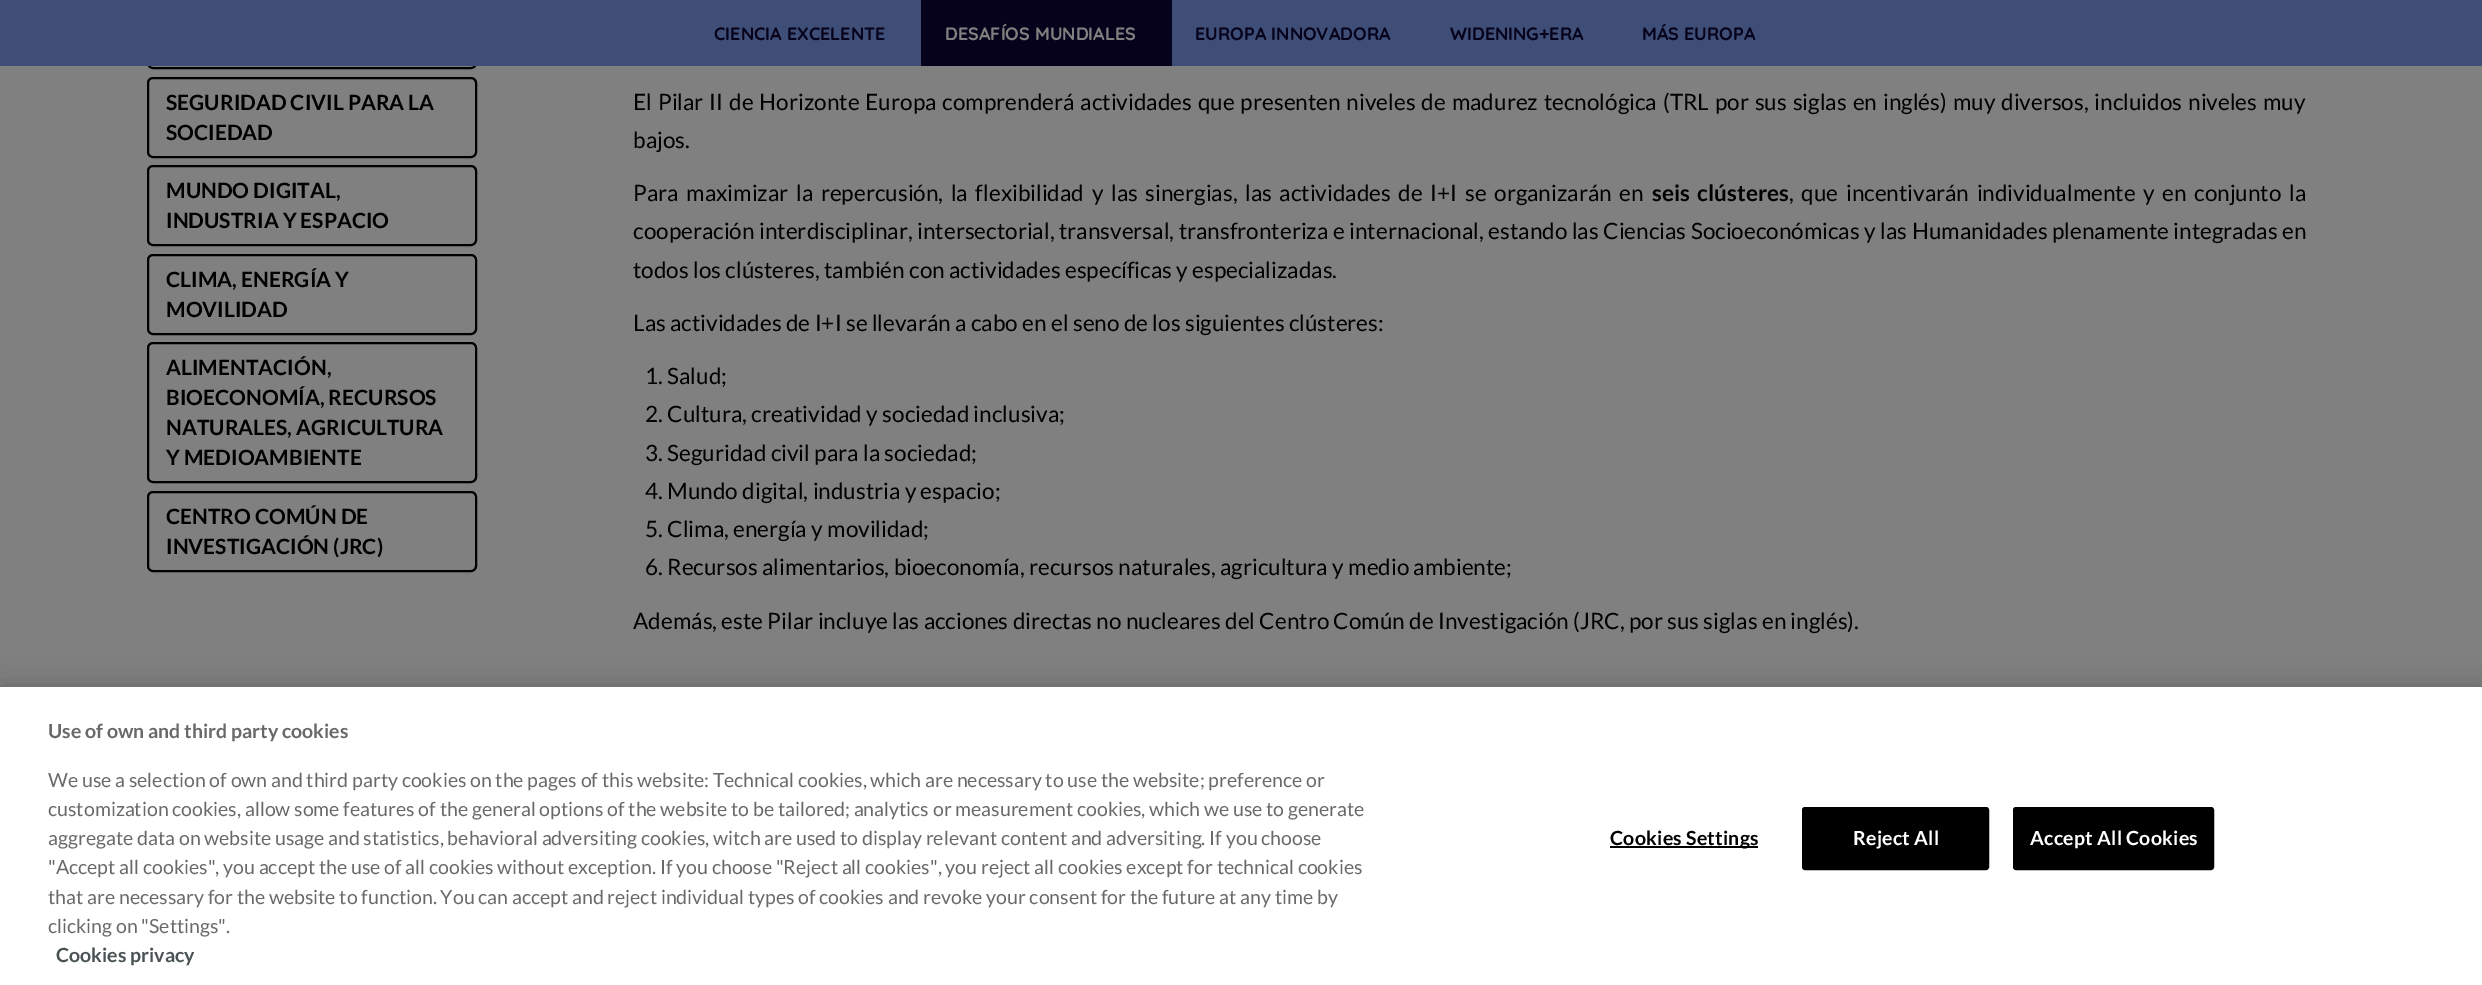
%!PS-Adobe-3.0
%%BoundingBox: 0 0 2482 985
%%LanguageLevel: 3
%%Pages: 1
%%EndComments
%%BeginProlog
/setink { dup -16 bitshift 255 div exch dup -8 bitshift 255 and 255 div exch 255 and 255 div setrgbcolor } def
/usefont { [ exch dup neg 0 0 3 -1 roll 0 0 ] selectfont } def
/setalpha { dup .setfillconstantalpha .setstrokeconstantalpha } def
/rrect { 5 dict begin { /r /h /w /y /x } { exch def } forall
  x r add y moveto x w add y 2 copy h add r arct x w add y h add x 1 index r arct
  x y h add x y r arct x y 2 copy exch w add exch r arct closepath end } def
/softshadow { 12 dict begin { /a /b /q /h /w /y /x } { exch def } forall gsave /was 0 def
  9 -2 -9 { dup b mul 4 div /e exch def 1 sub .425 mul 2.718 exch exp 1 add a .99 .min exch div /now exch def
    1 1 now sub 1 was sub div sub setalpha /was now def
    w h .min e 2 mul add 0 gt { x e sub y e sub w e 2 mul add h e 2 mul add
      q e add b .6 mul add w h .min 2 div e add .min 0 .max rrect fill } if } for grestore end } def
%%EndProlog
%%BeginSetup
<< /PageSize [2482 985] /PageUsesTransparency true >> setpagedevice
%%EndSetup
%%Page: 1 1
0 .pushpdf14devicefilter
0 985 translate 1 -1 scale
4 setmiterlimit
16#808080 setink
0 0 2482 985 rectfill
16#000000 setink
2 setlinewidth
148 -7 328 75 5 rrect stroke
16#3E4E77 setink
0 0 2482 66 rectfill
/Quicksand-Bold 18 usefont
16#06021B setink
714 40 moveto (CIENCIA EXCELENTE) show
921 0 251 66 rectfill
16#808080 setink
945 40 moveto (DESAFÍOS MUNDIALES) show
16#06021B setink
[
    [(EUROPA INNOVADORA) 1195 40]
    [(WIDENING+ERA) 1450 40]
    [(MÁS EUROPA) 1642 40]
] { aload pop moveto show } forall
16#000000 setink
148 78 328 79 5 rrect stroke
/Lato-Bold 21 usefont
166 110 moveto (SEGURIDAD CIVIL PARA LA) show
166 140 moveto (SOCIEDAD) show
148 166 328 79 5 rrect stroke
166 198 moveto (MUNDO DIGITAL,) show
166 228 moveto (INDUSTRIA Y ESPACIO) show
148 255 328 79 5 rrect stroke
166 287 moveto (CLIMA, ENERGÍA Y) show
166 317 moveto (MOVILIDAD) show
148 343 328 139 5 rrect stroke
[
    [(ALIMENTACIÓN,) 166 375]
    [(BIOECONOMÍA, RECURSOS) 166 405]
    [(NATURALES, AGRICULTURA) 166 435]
    [(Y MEDIOAMBIENTE) 166 465]
] { aload pop moveto show } forall
148 492 328 79 5 rrect stroke
166 524 moveto (CENTRO COMÚN DE) show
166 554 moveto (INVESTIGACIÓN \(JRC\)) show
/Lato-Regular 22.5 usefont
633 110 moveto 1.6 0 32 (El Pilar II de Horizonte Europa comprenderá actividades que presenten niveles de madurez tecnológica \(TRL por sus siglas en inglés\) muy diversos, incluidos niveles muy) widthshow
633 148 moveto (bajos.) show
633 201 moveto 3.25 0 32 (Para maximizar la repercusión, la flexibilidad y las sinergias, las actividades de I+I se organizarán en) widthshow
/Lato-Bold 22.5 usefont
1652 201 moveto 3.25 0 32 (seis clústeres) widthshow
/Lato-Regular 22.5 usefont
1789 201 moveto 3.25 0 32 (, que incentivarán individualmente y en conjunto la) widthshow
633 239 moveto 0.2 0 32 (cooperación interdisciplinar, intersectorial, transversal, transfronteriza e internacional, estando las Ciencias Socioeconómicas y las Humanidades plenamente integradas en) widthshow
[
    [(todos los clústeres, también con actividades específicas y especializadas.) 633 278]
    [(Las actividades de I+I se llevarán a cabo en el seno de los siguientes clústeres:) 633 331]
    [(1. Salud;) 645 384]
    [(2. Cultura, creatividad y sociedad inclusiva;) 645 422]
    [(3. Seguridad civil para la sociedad;) 645 461]
    [(4. Mundo digital, industria y espacio;) 645 499]
    [(5. Clima, energía y movilidad;) 645 537]
    [(6. Recursos alimentarios, bioeconomía, recursos naturales, agricultura y medio ambiente;) 645 575]
    [(Además, este Pilar incluye las acciones directas no nucleares del Centro Común de Investigación \(JRC, por sus siglas en inglés\).) 633 629]
] { aload pop moveto show } forall
0 687 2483 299 0 13.5 0.2 softshadow
16#FFFFFF setink
0 687 2482 298 rectfill
/Lato-Bold 19.5 usefont
16#696969 setink
48 738 moveto (Use of own and third party cookies) show
/Lato-Regular 19.5 usefont
[
    [(We use a selection of own and third party cookies on the pages of this website: Technical cookies, which are necessary to use the website; preference or) 48 787]
    [(customization cookies, allow some features of the general options of the website to be tailored; analytics or measurement cookies, which we use to generate) 48 816]
    [(aggregate data on website usage and statistics, behavioral adversiting cookies, witch are used to display relevant content and adversiting. If you choose) 48 845]
    [("Accept all cookies", you accept the use of all cookies without exception. If you choose "Reject all cookies", you reject all cookies except for technical cookies) 48 874]
    [(that are necessary for the website to function. You can accept and reject individual types of cookies and revoke your consent for the future at any time by) 48 904]
    [(clicking on "Settings".) 48 933]
] { aload pop moveto show } forall
/Lato-Bold 19.5 usefont
16#4A5354 setink
56 962 moveto (Cookies privacy) show
16#000000 setink
1610 846 148 2 rectfill
1610 845 moveto 0.25 0 (Cookies Settings) ashow
1803 808 185 61 2 rrect gsave fill grestore
stroke
16#FFFFFF setink
1853 845 moveto 0.25 0 (Reject All) ashow
16#000000 setink
2014 808 199 61 2 rrect gsave fill grestore
stroke
16#FFFFFF setink
2030 845 moveto 0.25 0 (Accept All Cookies) ashow
.poppdf14devicefilter showpage
%%EOF
